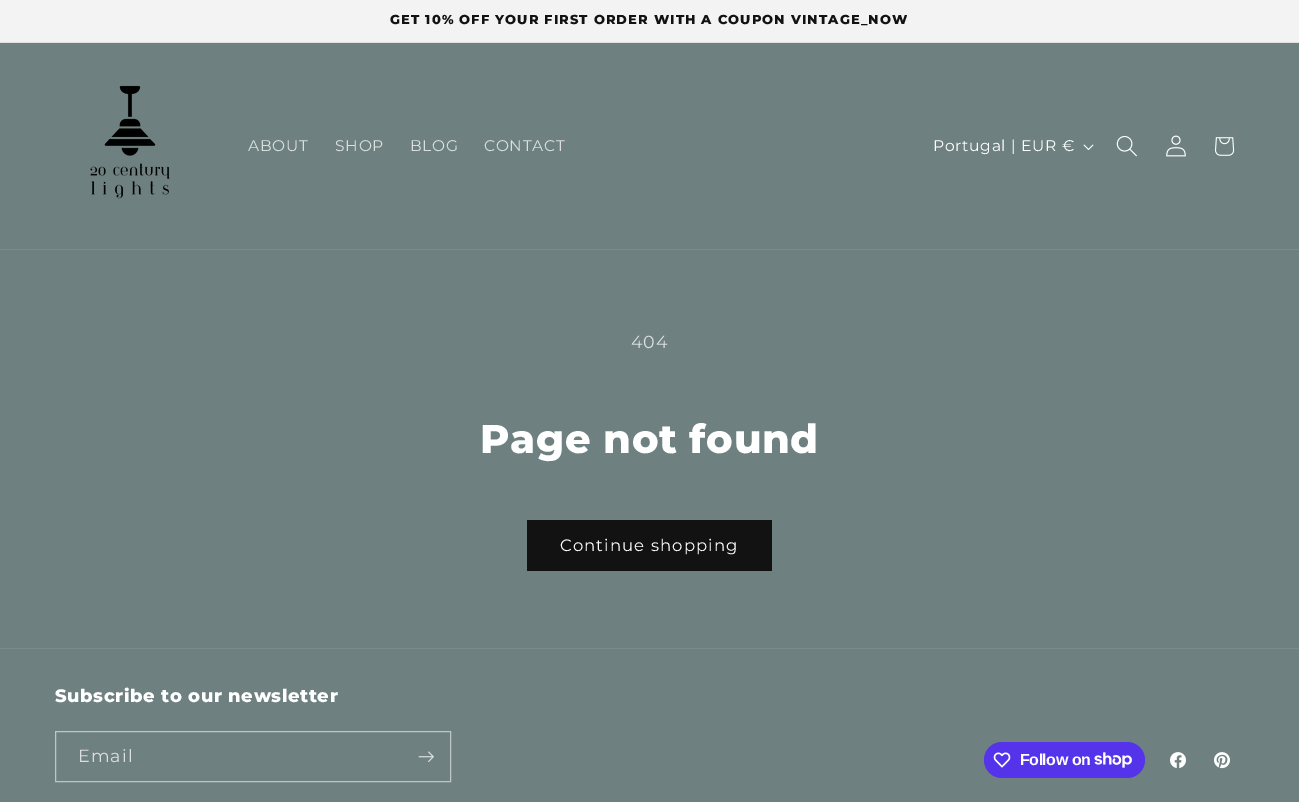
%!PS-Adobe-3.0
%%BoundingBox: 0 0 1299 802
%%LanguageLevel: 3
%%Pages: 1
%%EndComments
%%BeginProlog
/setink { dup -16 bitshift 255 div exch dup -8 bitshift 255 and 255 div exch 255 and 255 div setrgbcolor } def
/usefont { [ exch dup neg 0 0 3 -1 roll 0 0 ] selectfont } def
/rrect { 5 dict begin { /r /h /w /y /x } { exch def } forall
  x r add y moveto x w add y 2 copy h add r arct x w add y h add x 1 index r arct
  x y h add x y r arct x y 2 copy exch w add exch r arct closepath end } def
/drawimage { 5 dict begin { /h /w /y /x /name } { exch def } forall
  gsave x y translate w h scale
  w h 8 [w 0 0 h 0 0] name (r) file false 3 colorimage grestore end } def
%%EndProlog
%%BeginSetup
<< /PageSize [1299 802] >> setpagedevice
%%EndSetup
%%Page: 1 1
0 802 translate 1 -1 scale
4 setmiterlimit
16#6E8180 setink
0 0 1299 802 rectfill
16#F3F3F3 setink
0 0 1299 42 rectfill
16#E1E1E1 setink
0 42 1299 1 rectfill
/Montserrat-ExtraBold 13 usefont
16#121212 setink
390 24 moveto 1.1 0 (GET 10% OFF YOUR FIRST ORDER WITH A COUPON VINTAGE_NOW) ashow
16#7A8B8A setink
0 249 1299 1 rectfill
(img1.raw) 90 85 80 114 drawimage
/Montserrat-Regular 15.5 usefont
16#DBE0DF setink
248 151 moveto 0.7 0 (ABOUT) ashow
335 151 moveto 0.7 0 (SHOP) ashow
410 151 moveto 0.7 0 (BLOG) ashow
484 151 moveto 0.7 0 (CONTACT) ashow
16#FFFFFF setink
933 151 moveto 0.7 0 (Portugal | EUR €) ashow
(img2.raw) 1083 144 11 6 drawimage
(img3.raw) 1116 136 21 21 drawimage
(img4.raw) 1166 135 20 22 drawimage
(img5.raw) 1215 137 20 19 drawimage
/Montserrat-Regular 17.5 usefont
16#DBE0DF setink
631 348 moveto 0.7 0 (404) ashow
/Montserrat-ExtraBold 40 usefont
16#FFFFFF setink
480 453 moveto 0.6 0 (Page not found) ashow
16#121212 setink
527 520 245 51 rectfill
/Montserrat-Regular 16.5 usefont
16#FFFFFF setink
560 551 moveto 1.1 0 (Continue shopping) ashow
16#7A8B8A setink
0 648 1299 1 rectfill
/Montserrat-ExtraBold 18 usefont
16#FFFFFF setink
55 702 moveto 0.6 0 (Subscribe to our newsletter) ashow
16#BEC6C6 setink
55.5 731.5 395 50 rectstroke
/Montserrat-Regular 17.5 usefont
16#DBE0DF setink
78 762 moveto 1.1 0 (Email) ashow
(img6.raw) 418 751 16 11 drawimage
16#5433EB setink
984 742 161 36 18 rrect fill
(img7.raw) 993 752 18 16 drawimage
/LiberationSans-Bold 16 usefont
16#FFFFFF setink
1020 765 moveto -0.5 0 (Follow on) ashow
(img8.raw) 1094 752 38 16 drawimage
(img9.raw) 1170 752 16 16 drawimage
(img10.raw) 1214 752 16 17 drawimage
showpage
%%EOF
